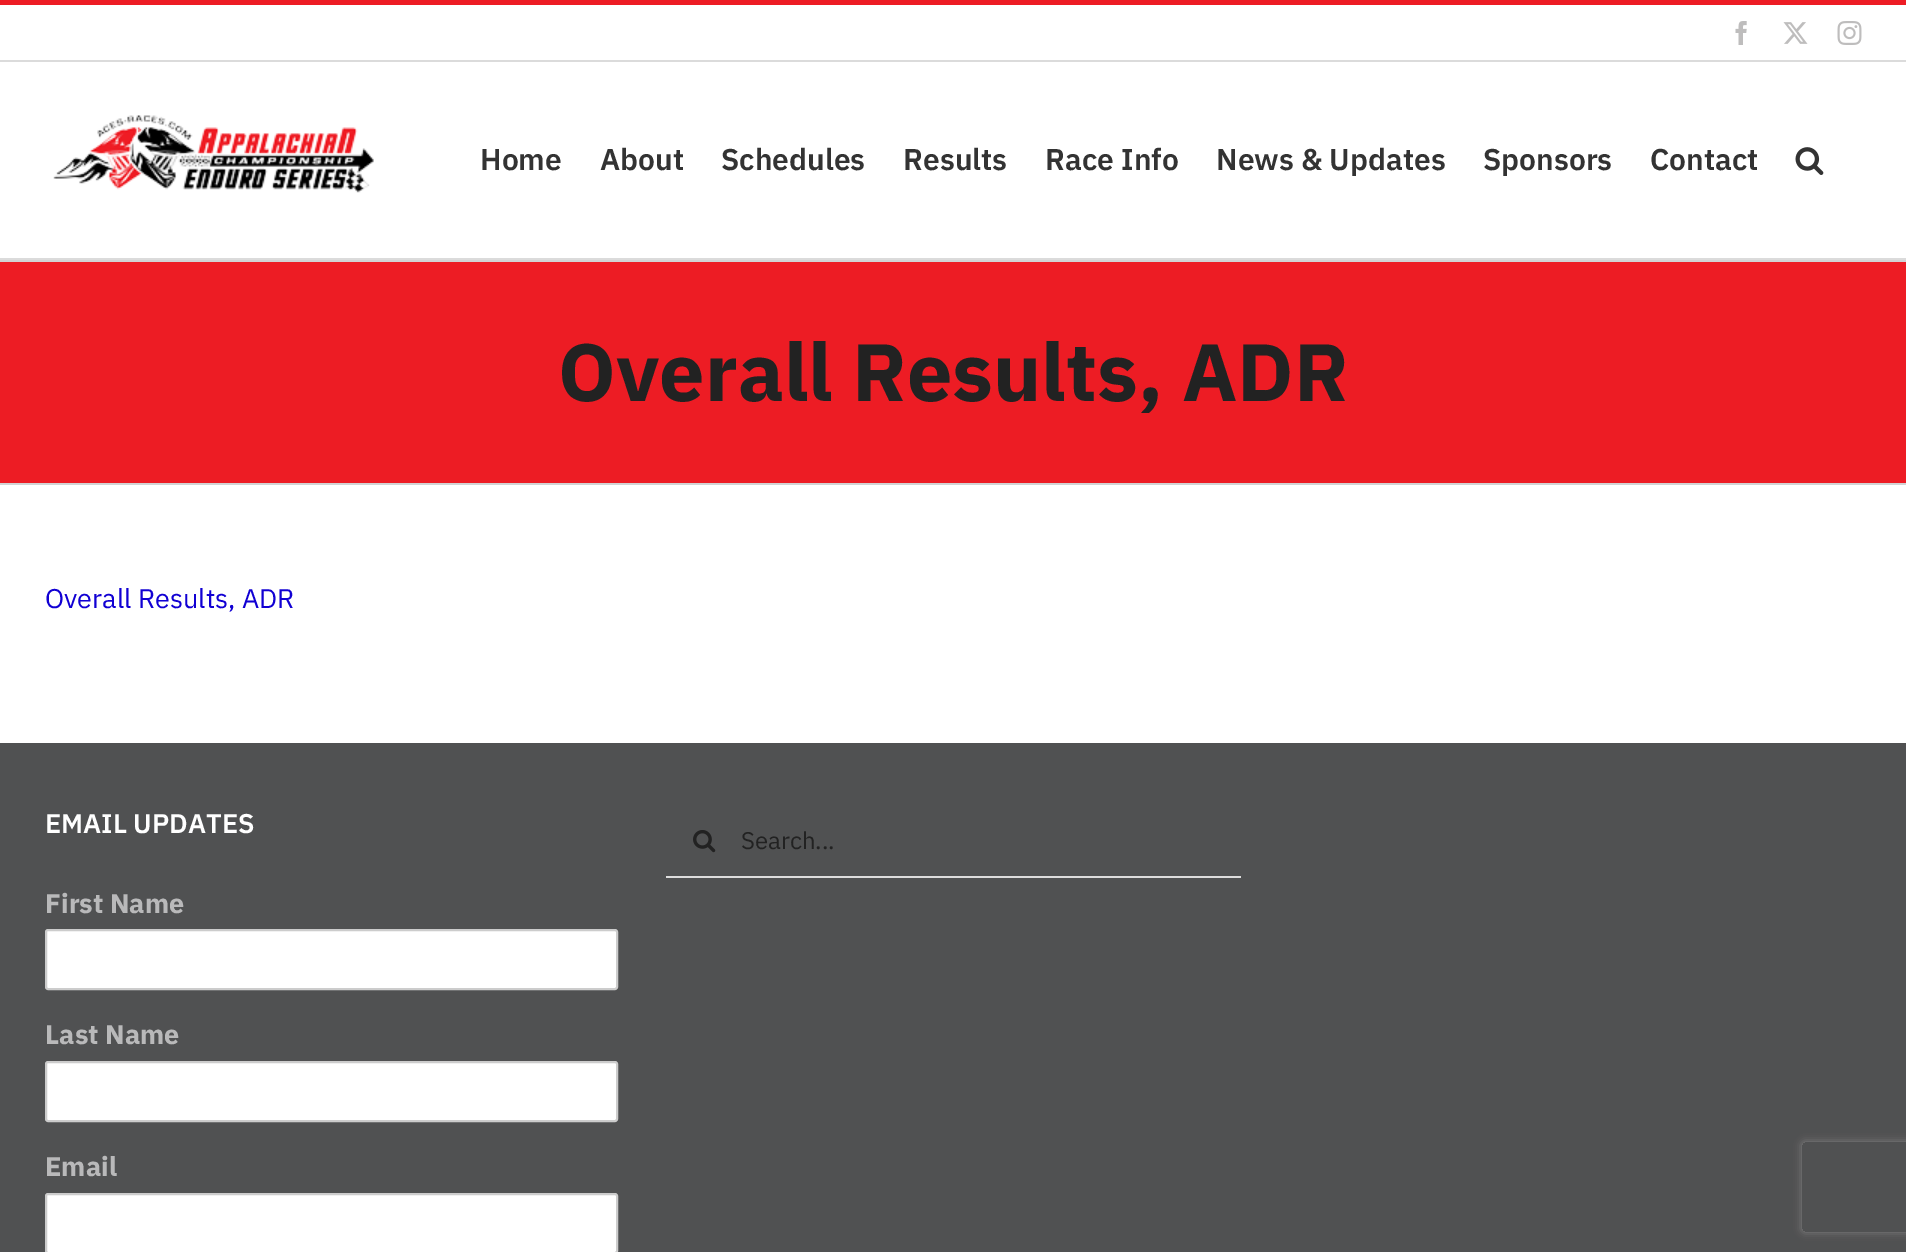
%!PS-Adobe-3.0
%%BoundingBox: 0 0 1906 1252
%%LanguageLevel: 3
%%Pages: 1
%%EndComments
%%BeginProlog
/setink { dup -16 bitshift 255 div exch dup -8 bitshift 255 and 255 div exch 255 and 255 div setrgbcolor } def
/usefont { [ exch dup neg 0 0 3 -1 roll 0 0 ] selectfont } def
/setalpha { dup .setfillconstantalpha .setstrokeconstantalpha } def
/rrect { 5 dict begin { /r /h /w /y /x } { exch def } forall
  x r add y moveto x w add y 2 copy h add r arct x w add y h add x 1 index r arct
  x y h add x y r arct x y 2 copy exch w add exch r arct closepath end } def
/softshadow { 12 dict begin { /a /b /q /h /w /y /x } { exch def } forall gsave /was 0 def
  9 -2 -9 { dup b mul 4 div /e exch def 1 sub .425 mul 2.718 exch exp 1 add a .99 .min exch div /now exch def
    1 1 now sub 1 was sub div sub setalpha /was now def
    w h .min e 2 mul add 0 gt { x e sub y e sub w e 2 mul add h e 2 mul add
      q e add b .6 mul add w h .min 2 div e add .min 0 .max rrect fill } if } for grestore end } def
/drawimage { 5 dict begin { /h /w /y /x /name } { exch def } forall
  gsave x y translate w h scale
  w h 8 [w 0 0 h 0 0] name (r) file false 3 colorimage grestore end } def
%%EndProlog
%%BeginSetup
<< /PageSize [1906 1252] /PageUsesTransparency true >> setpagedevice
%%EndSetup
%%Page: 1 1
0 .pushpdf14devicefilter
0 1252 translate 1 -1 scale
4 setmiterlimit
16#FFFFFF setink
0 0 1906 1252 rectfill
16#ED1C24 setink
0 0 1906 5 rectfill
16#DBDBDB setink
0 60 1906 2 rectfill
(img1.raw) 1735 21 12 24 drawimage
(img2.raw) 1783 22 25 22 drawimage
(img3.raw) 1837 21 25 24 drawimage
0 258 1906 2 rectfill
(img4.raw) 53 115 321 78 drawimage
/IBMPlexSans-SemiBold 30 usefont
16#333333 setink
[
    [(Home) 480 170]
    [(About) 600 170]
    [(Schedules) 721 170]
    [(Results) 903 170]
    [(Race Info) 1045 170]
    [(News & Updates) 1216 170]
    [(Sponsors) 1483 170]
    [(Contact) 1650 170]
] { aload pop moveto show } forall
(img5.raw) 1795 147 29 28 drawimage
[
    [0 262 1906 221 16#ED1C24]
    [0 260 1906 2 16#D2D3D4]
    [0 483 1906 2 16#D2D3D4]
] { aload pop setink rectfill } forall
/IBMPlexSans-Bold 81 usefont
16#222222 setink
558 401 moveto (Overall Results, ADR) show
/IBMPlexSans-Regular 27 usefont
16#1100D3 setink
45 608 moveto (Overall Results, ADR) show
16#505152 setink
0 743 1906 509 rectfill
/IBMPlexSans-SemiBold 27 usefont
16#FFFFFF setink
45 833 moveto (EMAIL UPDATES) show
/IBMPlexSans-Bold 27 usefont
16#B9B9BA setink
45 913 moveto (First Name) show
16#FFFFFF setink
46 930 571 59 2 rrect gsave fill grestore
16#CCCCCC setink
2 setlinewidth
stroke
16#B9B9BA setink
45 1044 moveto (Last Name) show
16#FFFFFF setink
46 1062 571 59 2 rrect gsave fill grestore
16#CCCCCC setink
stroke
16#B9B9BA setink
45 1176 moveto (Email) show
16#FFFFFF setink
46 1194 571 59 2 rrect gsave fill grestore
16#CCCCCC setink
stroke
(img6.raw) 693 830 23 23 drawimage
16#DDDDDD setink
666 876 575 2 rectfill
/IBMPlexSans-Regular 24 usefont
16#222222 setink
741 849 moveto (Search...) show
gsave
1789 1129 moveto 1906 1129 lineto 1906 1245 lineto 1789 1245 lineto closepath 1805 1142 moveto 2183 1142 lineto 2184.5 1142 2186 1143.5 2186 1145 curveto 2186 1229 lineto 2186 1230.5 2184.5 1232 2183 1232 curveto 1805 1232 lineto 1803.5 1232 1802 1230.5 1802 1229 curveto 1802 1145 lineto 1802 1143.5 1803.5 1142 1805 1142 curveto closepath eoclip newpath
16#808080 setink
1802 1142 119 90 3 4 1 softshadow
grestore
.poppdf14devicefilter showpage
%%EOF
